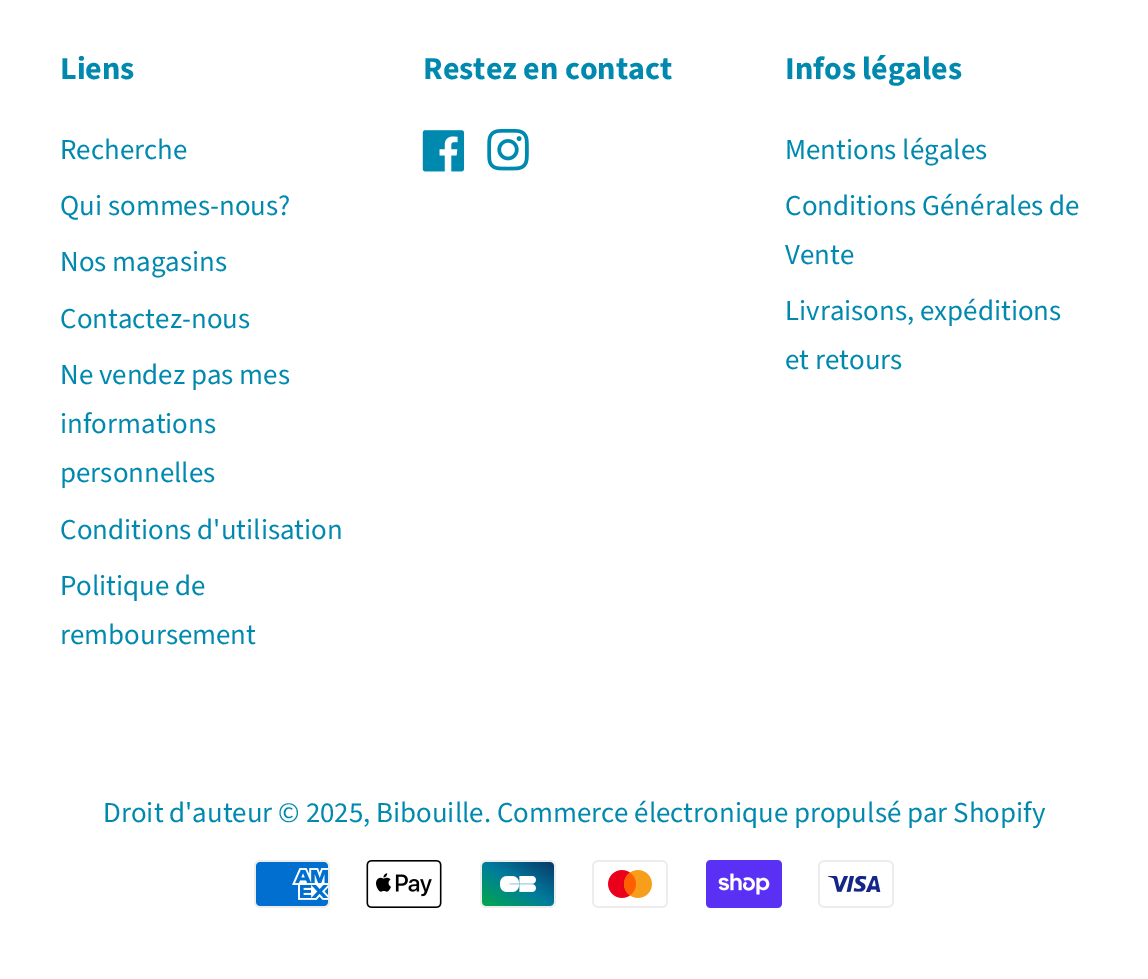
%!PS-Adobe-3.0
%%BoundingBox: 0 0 1148 979
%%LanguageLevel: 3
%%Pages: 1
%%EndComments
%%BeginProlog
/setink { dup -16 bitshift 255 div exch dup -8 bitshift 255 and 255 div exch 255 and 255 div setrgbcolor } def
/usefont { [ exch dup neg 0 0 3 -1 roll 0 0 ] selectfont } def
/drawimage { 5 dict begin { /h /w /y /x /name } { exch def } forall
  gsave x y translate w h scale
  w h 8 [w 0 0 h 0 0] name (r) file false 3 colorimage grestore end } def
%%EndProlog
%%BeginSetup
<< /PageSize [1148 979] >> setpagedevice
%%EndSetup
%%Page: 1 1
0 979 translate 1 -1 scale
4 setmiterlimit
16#FFFFFF setink
0 0 1148 979 rectfill
/SourceSansPro-Bold 32 usefont
16#0089AF setink
60 79 moveto (Liens) show
/SourceSansPro-Regular 28.9 usefont
[
    [(Recherche) 60 159]
    [(Qui sommes-nous?) 60 215]
    [(Nos magasins) 60 271]
    [(Contactez-nous) 60 328]
    [(Ne vendez pas mes) 60 384]
    [(informations) 60 433]
    [(personnelles) 60 482]
    [(Conditions d'utilisation) 60 539]
    [(Politique de) 60 595]
    [(remboursement) 60 644]
] { aload pop moveto show } forall
/SourceSansPro-Bold 32 usefont
423 79 moveto (Restez en contact) show
(img1.raw) 422 130 43 42 drawimage
(img2.raw) 487 128 42 43 drawimage
785 79 moveto (Infos légales) show
/SourceSansPro-Regular 28.9 usefont
[
    [(Mentions légales) 785 159]
    [(Conditions Générales de) 785 215]
    [(Vente) 785 264]
    [(Livraisons, expéditions) 785 320]
    [(et retours) 785 369]
    [(Droit d'auteur © 2025, Bibouille. Commerce électronique propulsé par Shopify) 103 822]
] { aload pop moveto show } forall
(img3.raw) 254 860 76 48 drawimage
(img4.raw) 366 860 76 48 drawimage
(img5.raw) 480 860 76 48 drawimage
(img6.raw) 592 860 76 48 drawimage
(img7.raw) 706 860 76 48 drawimage
(img8.raw) 818 860 76 48 drawimage
showpage
%%EOF
